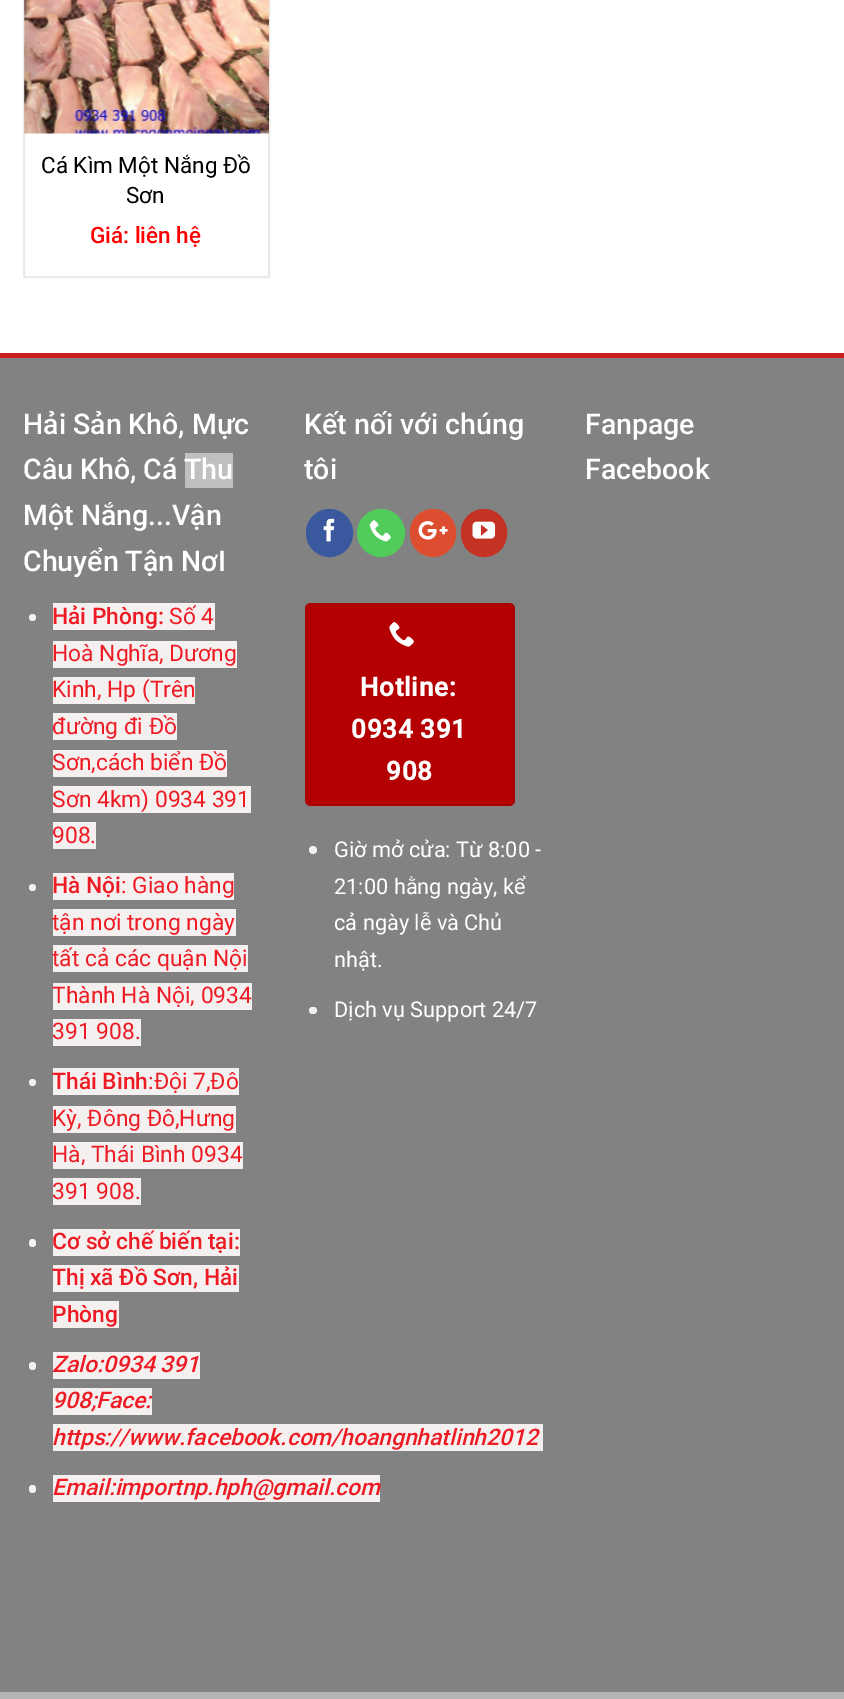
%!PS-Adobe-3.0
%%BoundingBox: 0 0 844 1699
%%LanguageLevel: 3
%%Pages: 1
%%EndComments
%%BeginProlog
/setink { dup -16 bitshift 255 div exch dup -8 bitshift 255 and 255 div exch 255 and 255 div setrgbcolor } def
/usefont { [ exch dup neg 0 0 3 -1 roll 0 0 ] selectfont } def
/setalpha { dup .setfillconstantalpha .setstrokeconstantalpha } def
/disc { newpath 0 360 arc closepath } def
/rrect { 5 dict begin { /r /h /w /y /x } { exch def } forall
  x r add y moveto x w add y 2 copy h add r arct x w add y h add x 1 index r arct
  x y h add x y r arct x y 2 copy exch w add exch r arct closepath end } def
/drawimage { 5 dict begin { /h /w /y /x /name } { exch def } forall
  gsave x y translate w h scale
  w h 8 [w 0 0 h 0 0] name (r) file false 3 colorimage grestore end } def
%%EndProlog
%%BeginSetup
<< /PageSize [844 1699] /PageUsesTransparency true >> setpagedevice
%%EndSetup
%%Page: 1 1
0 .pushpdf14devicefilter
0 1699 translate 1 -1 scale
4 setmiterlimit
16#FFFFFF setink
0 0 844 1699 rectfill
16#EAEAEA setink
2 setlinewidth
24 -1 245 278 rectstroke
(img1.raw) 24 0 245 134 drawimage
/Roboto-Regular 22.5 usefont
16#000000 setink
41 173 moveto (Cá Kìm Một Nắng Đồ) show
126 203 moveto (Sơn) show
/Roboto-Medium 22.5 usefont
16#FF0000 setink
90 243 moveto (Giá: liên hệ) show
16#828282 setink
0 358 844 1334 rectfill
16#CB1D1E setink
0 353 844 5 rectfill
/Roboto-Medium 28.5 usefont
16#FFFFFF setink
23 434 moveto (Hải Sản Khô, Mực) show
23 479 moveto (Câu Khô, Cá) show
16#C0C0C0 setink
185 453 48 35 rectfill
16#FFFFFF setink
[
    [(Thu) 184 479]
    [(Một Nắng...Vận) 23 525]
    [(Chuyển Tận NơI) 23 571]
] { aload pop moveto show } forall
16#F1F1F1 setink
32.5 617.5 3.5 disc fill
16#F5F0F0 setink
53 603 162 27 rectfill
/Roboto-Medium 22.8 usefont
16#ED1C24 setink
52 624 moveto (Hải Phòng:) show
/Roboto-Regular 22.8 usefont
169 624 moveto (Số 4) show
16#F5F0F0 setink
53 641 184 27 rectfill
16#ED1C24 setink
52 661 moveto (Hoà Nghĩa, Dương) show
16#F5F0F0 setink
53 677 142 27 rectfill
16#ED1C24 setink
52 697 moveto (Kinh, Hp \(Trên) show
16#F5F0F0 setink
53 713 124 27 rectfill
16#ED1C24 setink
52 734 moveto (đường đi Đồ) show
16#F5F0F0 setink
53 750 174 27 rectfill
16#ED1C24 setink
52 770 moveto (Sơn,cách biển Đồ) show
16#F5F0F0 setink
53 786 198 27 rectfill
16#ED1C24 setink
52 807 moveto (Sơn 4km\) 0934 391) show
16#F5F0F0 setink
53 822 43 27 rectfill
16#ED1C24 setink
52 843 moveto (908.) show
16#F1F1F1 setink
32.5 887.5 3.5 disc fill
16#F5F0F0 setink
53 873 181 27 rectfill
/Roboto-Medium 22.8 usefont
16#ED1C24 setink
52 893 moveto (Hà Nội) show
/Roboto-Regular 22.8 usefont
121 893 moveto (: Giao hàng) show
16#F5F0F0 setink
53 909 183 27 rectfill
16#ED1C24 setink
52 930 moveto (tận nơi trong ngày) show
16#F5F0F0 setink
53 945 195 27 rectfill
16#ED1C24 setink
52 966 moveto (tất cả các quận Nội) show
16#F5F0F0 setink
53 983 199 27 rectfill
16#ED1C24 setink
52 1003 moveto (Thành Hà Nội, 0934) show
16#F5F0F0 setink
53 1019 88 27 rectfill
16#ED1C24 setink
52 1039 moveto (391 908.) show
16#F1F1F1 setink
32.5 1082.5 3.5 disc fill
16#F5F0F0 setink
53 1068 186 27 rectfill
/Roboto-Medium 22.8 usefont
16#ED1C24 setink
52 1089 moveto (Thái Bình) show
/Roboto-Regular 22.8 usefont
148 1089 moveto (:Đội 7,Đô) show
16#F5F0F0 setink
53 1106 183 27 rectfill
16#ED1C24 setink
52 1126 moveto (Kỳ, Đông Đô,Hưng) show
16#F5F0F0 setink
53 1142 190 27 rectfill
16#ED1C24 setink
52 1162 moveto (Hà, Thái Bình 0934) show
16#F5F0F0 setink
53 1178 88 27 rectfill
16#ED1C24 setink
52 1199 moveto (391 908.) show
16#F1F1F1 setink
29 1239 7 8 3.5 rrect fill
16#F5F0F0 setink
53 1229 187 27 rectfill
/Roboto-Medium 22.8 usefont
16#ED1C24 setink
52 1249 moveto (Cơ sở chế biến tại:) show
16#F5F0F0 setink
53 1265 186 27 rectfill
16#ED1C24 setink
52 1285 moveto (Thị xã Đồ Sơn, Hải) show
16#F5F0F0 setink
53 1301 66 27 rectfill
16#ED1C24 setink
52 1322 moveto (Phòng) show
16#F1F1F1 setink
29 1362 7 8 3.5 rrect fill
16#F5F0F0 setink
53 1352 147 27 rectfill
/Roboto-MediumItalic 22.8 usefont
16#ED1C24 setink
52 1372 moveto (Zalo:0934 391) show
16#F5F0F0 setink
53 1388 99 27 rectfill
16#ED1C24 setink
52 1408 moveto (908;Face:) show
16#F5F0F0 setink
53 1424 490 27 rectfill
16#ED1C24 setink
52 1445 moveto (https://www.facebook.com/hoangnhatlinh2012) show
16#F1F1F1 setink
29 1485 7 8 3.5 rrect fill
16#F5F0F0 setink
53 1475 327 27 rectfill
16#ED1C24 setink
52 1495 moveto (Email:importnp.hph@gmail.com) show
/Roboto-Medium 28.5 usefont
16#FFFFFF setink
304 434 moveto (Kết nối với chúng) show
304 479 moveto (tôi) show
16#3A589D setink
307 510 45 46 22.5 rrect gsave fill grestore
stroke
(img2.raw) 323 518 12 24 drawimage
16#51CB5A setink
381 533 23 disc gsave fill grestore
stroke
(img3.raw) 369 520 22 22 drawimage
16#DD4E31 setink
411 510 44 46 22 rrect gsave fill grestore
stroke
(img4.raw) 418 521 30 19 drawimage
16#C33223 setink
462 510 44 46 22 rrect gsave fill grestore
stroke
(img5.raw) 472 521 24 18 drawimage
16#B40000 setink
305 603 210 203 6 rrect fill
0.05 setalpha
16#000000 setink
306 604 208 201 rectstroke
1 setalpha
(img6.raw) 389 622 25 25 drawimage
/Roboto-Bold 26 usefont
16#FFFFFF setink
360 696 moveto 0.75 0 (Hotline:) ashow
351 738 moveto 0.75 0 (0934 391) ashow
386 780 moveto 0.75 0 (908) ashow
16#F1F1F1 setink
313 850 4 disc fill
/Roboto-Regular 21.75 usefont
16#FFFFFF setink
[
    [(Giờ mở cửa: Từ 8:00 -) 334 857]
    [(21:00 hằng ngày, kể) 334 894]
    [(cả ngày lễ và Chủ) 334 930]
    [(nhật.) 334 967]
] { aload pop moveto show } forall
16#F1F1F1 setink
309 1007 8 7 3.5 rrect fill
16#FFFFFF setink
334 1017 moveto (Dịch vụ Support 24/7) show
/Roboto-Medium 28.5 usefont
585 434 moveto (Fanpage) show
585 479 moveto (Facebook) show
16#B5B5B5 setink
0 1692 844 7 rectfill
.poppdf14devicefilter showpage
%%EOF
